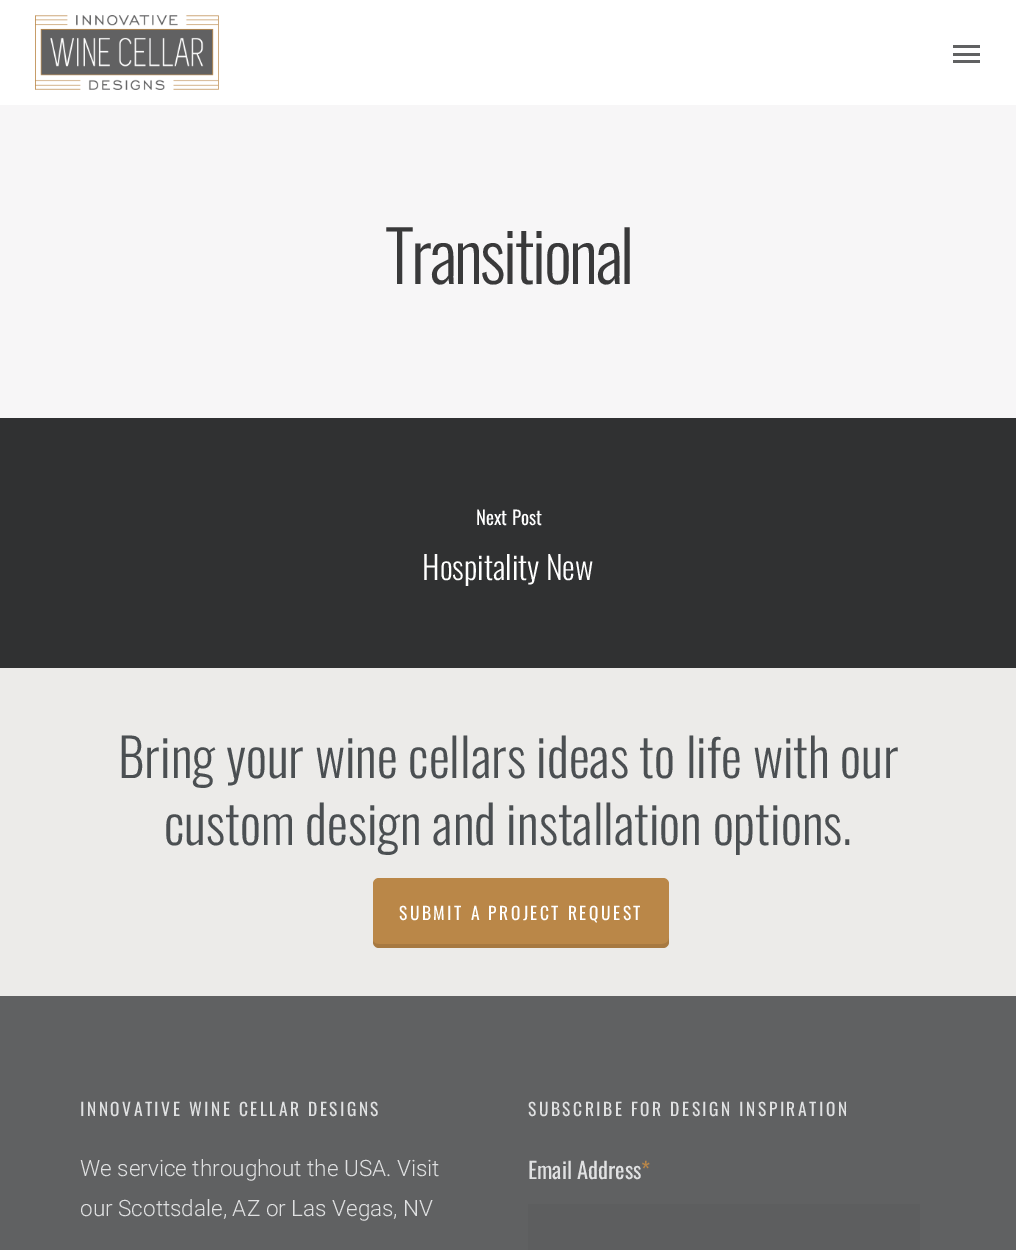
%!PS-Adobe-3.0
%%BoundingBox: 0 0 1016 1250
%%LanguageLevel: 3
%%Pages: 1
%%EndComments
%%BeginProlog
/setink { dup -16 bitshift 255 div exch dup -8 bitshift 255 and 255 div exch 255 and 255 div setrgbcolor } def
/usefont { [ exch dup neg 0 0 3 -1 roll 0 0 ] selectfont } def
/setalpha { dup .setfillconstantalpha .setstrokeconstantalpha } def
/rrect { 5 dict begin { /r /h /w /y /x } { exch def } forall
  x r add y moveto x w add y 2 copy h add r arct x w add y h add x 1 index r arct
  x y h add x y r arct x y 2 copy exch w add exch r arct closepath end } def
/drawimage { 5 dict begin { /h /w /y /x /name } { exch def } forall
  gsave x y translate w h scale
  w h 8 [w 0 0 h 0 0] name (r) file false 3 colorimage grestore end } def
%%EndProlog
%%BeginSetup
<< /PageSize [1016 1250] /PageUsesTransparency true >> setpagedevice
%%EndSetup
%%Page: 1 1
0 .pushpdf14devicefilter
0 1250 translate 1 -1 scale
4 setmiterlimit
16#F7F6F7 setink
0 0 1016 1250 rectfill
16#FFFFFF setink
0 0 1016 105 rectfill
(img1.raw) 35 15 184 75 drawimage
[
    [953 45 27 3 16#606162]
    [953 60 27 3 16#606162]
    [953 53 27 3 16#606162]
] { aload pop setink rectfill } forall
/Oswald-Light 70 usefont
16#39393A setink
385 284 moveto -2.5 0 (Transitional) ashow
16#303132 setink
0 418 1016 250 rectfill
/Oswald-Regular 19 usefont
16#FFFFFF setink
476 525 moveto (Next Post) show
/Oswald-Light 32 usefont
422 580 moveto (Hospitality New) show
16#606162 setink
0 996 1016 254 rectfill
16#ECEBE9 setink
0 668 1016 328 rectfill
/Oswald-Light 52.5 usefont
16#4B4F52 setink
118 778 moveto (Bring your wine cellars ideas to life with our) show
164 845 moveto (custom design and installation options.) show
16#BA8748 setink
373 878 296 70 6 rrect fill
0.1 setalpha
16#000000 setink
373 941 moveto 373 942 lineto 373 945 376 948 379 948 curveto 663 948 lineto 666 948 669 945 669 942 curveto 669 938 lineto 669 941 666 944 662 944 curveto 379 944 lineto 376 944 374 943 373 941 curveto closepath fill
/Oswald-Regular 17.5 usefont
1 setalpha
16#FFFFFF setink
399 920 moveto 2.5 0 (SUBMIT A PROJECT REQUEST) ashow
16#E0E1E2 setink
80 1116 moveto 2.5 0 (INNOVATIVE WINE CELLAR DESIGNS) ashow
/Roboto-Light 22.5 usefont
80 1176 moveto (We service throughout the USA. Visit) show
80 1216 moveto (our Scottsdale, AZ or Las Vegas, NV) show
/Oswald-Regular 17.5 usefont
528 1116 moveto 2.5 0 (SUBSCRIBE FOR DESIGN INSPIRATION) ashow
/Oswald-Regular 22.5 usefont
528 1179 moveto (Email Address) show
16#BA8748 setink
641 1179 moveto (*) show
16#5D5E5F setink
528 1204 392 46 rectfill
.poppdf14devicefilter showpage
%%EOF
